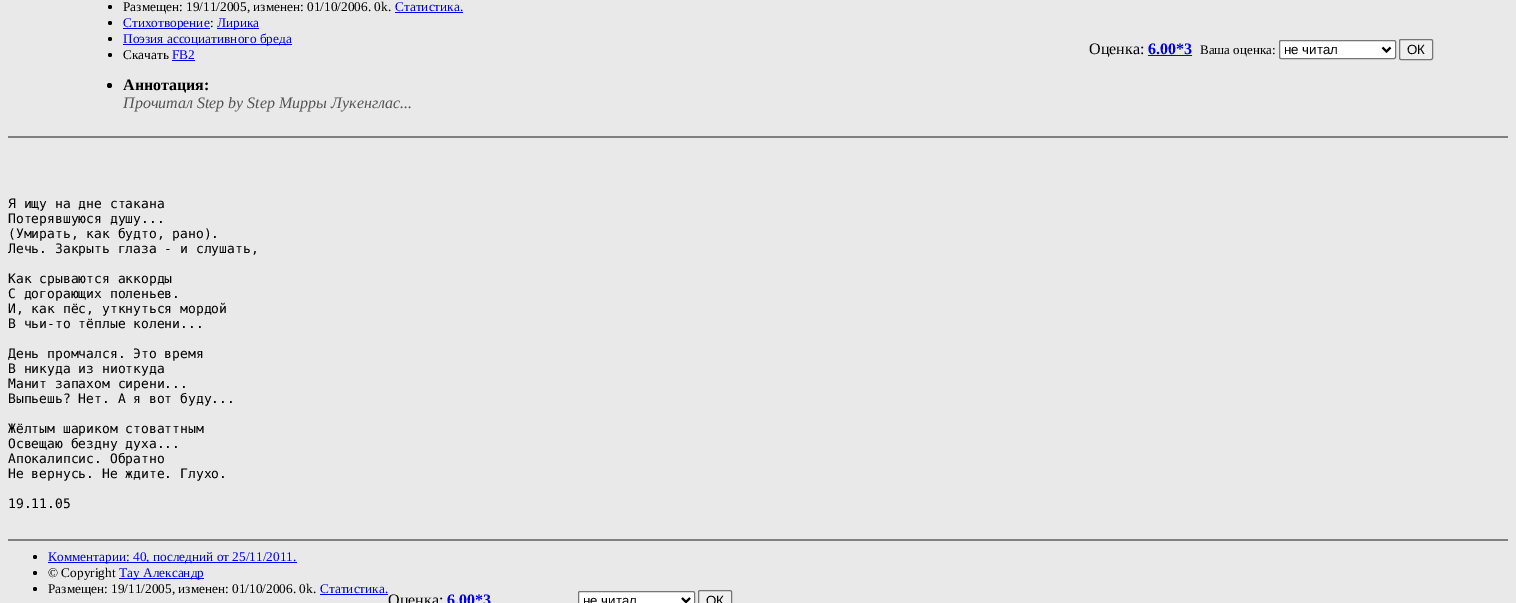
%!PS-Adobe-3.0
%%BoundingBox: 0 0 1516 603
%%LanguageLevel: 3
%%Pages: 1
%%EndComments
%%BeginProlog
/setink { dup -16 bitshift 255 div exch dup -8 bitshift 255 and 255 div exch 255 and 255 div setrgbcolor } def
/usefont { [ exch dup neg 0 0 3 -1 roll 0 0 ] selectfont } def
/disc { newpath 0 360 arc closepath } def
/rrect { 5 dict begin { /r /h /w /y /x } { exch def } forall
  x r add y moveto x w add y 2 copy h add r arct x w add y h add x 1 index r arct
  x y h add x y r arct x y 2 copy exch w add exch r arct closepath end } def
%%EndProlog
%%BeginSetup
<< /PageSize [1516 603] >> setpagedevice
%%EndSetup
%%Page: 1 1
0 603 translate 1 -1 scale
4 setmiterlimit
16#E9E9E9 setink
0 0 1516 603 rectfill
16#000000 setink
110 7 2 disc fill
/LiberationSerif-Regular 13.3 usefont
123 11 moveto (Размещен: 19/11/2005, изменен: 01/10/2006. 0k.) show
16#0000EE setink
395 11 moveto (Статистика.) show
395 12 68 1 rectfill
16#000000 setink
110 23 2 disc fill
16#0000EE setink
123 28 87 1 rectfill
123 27 moveto (Стихотворение) show
16#000000 setink
210 27 moveto (:) show
16#0000EE setink
217 28 42 1 rectfill
217 27 moveto (Лирика) show
16#000000 setink
110 39 2 disc fill
16#0000EE setink
123 44 169 1 rectfill
123 43 moveto (Поэзия ассоциативного бреда) show
16#000000 setink
110 55 2 disc fill
123 59 moveto (Скачать) show
16#0000EE setink
172 59 moveto (FB2) show
172 60 23 1 rectfill
/LiberationSerif-Regular 16 usefont
16#000000 setink
1089 54 moveto (Оценка:) show
/LiberationSerif-Bold 16 usefont
16#0000EE setink
1148 54 moveto (6.00*3) show
1148 55 44 1 rectfill
/LiberationSerif-Regular 13 usefont
16#000000 setink
1200 54 moveto (Ваша оценка:) show
16#FFFFFF setink
1279.5 40.5 116 18 1.5 rrect gsave fill grestore
16#767676 setink
stroke
16#000000 setink
2 setlinewidth
1382.5 47.5 moveto 1386.5 51.5 lineto 1390.5 47.5 lineto stroke
/LiberationSans-Regular 13.3 usefont
1284 54 moveto (не читал) show
16#EFEFEF setink
1399.5 39.5 33 20 1.5 rrect gsave fill grestore
16#767676 setink
1 setlinewidth
stroke
16#000000 setink
1407 54 moveto (ОК) show
109.5 85.5 2.5 disc fill
/LiberationSerif-Bold 16 usefont
123 90 moveto (Аннотация:) show
/LiberationSerif-Italic 16 usefont
16#555555 setink
123 108 moveto (Прочитал Step by Step Мирры Лукенглас...) show
16#808080 setink
8 136 1500 2 rectfill
/DejaVuSansMono-Regular 13 usefont
16#000000 setink
[
    [(Я ищу на дне стакана) 8 208]
    [(Потерявшуюся душу...) 8 223]
    [(\(Умирать, как будто, рано\).) 8 238]
    [(Лечь. Закрыть глаза - и слушать,) 8 253]
    [(Как срываются аккорды) 8 283]
    [(С догорающих поленьев.) 8 298]
    [(И, как пёс, уткнуться мордой) 8 313]
    [(В чьи-то тёплые колени...) 8 328]
    [(День промчался. Это время) 8 358]
    [(В никуда из ниоткуда) 8 373]
    [(Манит запахом сирени...) 8 388]
    [(Выпьешь? Нет. А я вот буду...) 8 403]
    [(Жёлтым шариком стоваттным) 8 433]
    [(Освещаю бездну духа...) 8 448]
    [(Апокалипсис. Обратно) 8 463]
    [(Не вернусь. Не ждите. Глухо.) 8 478]
    [(19.11.05) 8 508]
] { aload pop moveto show } forall
16#808080 setink
8 539 1500 2 rectfill
16#000000 setink
35 557 2 disc fill
16#0000EE setink
48 562 249 1 rectfill
/LiberationSerif-Regular 13.3 usefont
48 561 moveto (Комментарии: 40, последний от 25/11/2011.) show
16#000000 setink
35 573 2 disc fill
48 577 moveto (© Copyright) show
16#0000EE setink
119 578 85 1 rectfill
119 577 moveto (Тау Александр) show
16#000000 setink
35 589 2 disc fill
48 593 moveto (Размещен: 19/11/2005, изменен: 01/10/2006. 0k.) show
16#0000EE setink
320 593 moveto (Статистика.) show
320 594 68 1 rectfill
/LiberationSerif-Regular 16 usefont
16#000000 setink
388 605 moveto (Оценка:) show
/LiberationSerif-Bold 16 usefont
16#0000EE setink
447 605 moveto (6.00*3) show
16#FFFFFF setink
578.5 591.5 116 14 1.5 rrect gsave fill grestore
16#767676 setink
stroke
16#000000 setink
2 setlinewidth
682 598 moveto 686 602 lineto 690 598 lineto stroke
/LiberationSans-Regular 13.3 usefont
583 605 moveto (не читал) show
16#EFEFEF setink
698.5 590.5 33 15 1.5 rrect gsave fill grestore
16#767676 setink
1 setlinewidth
stroke
16#000000 setink
706 605 moveto (ОК) show
showpage
%%EOF
